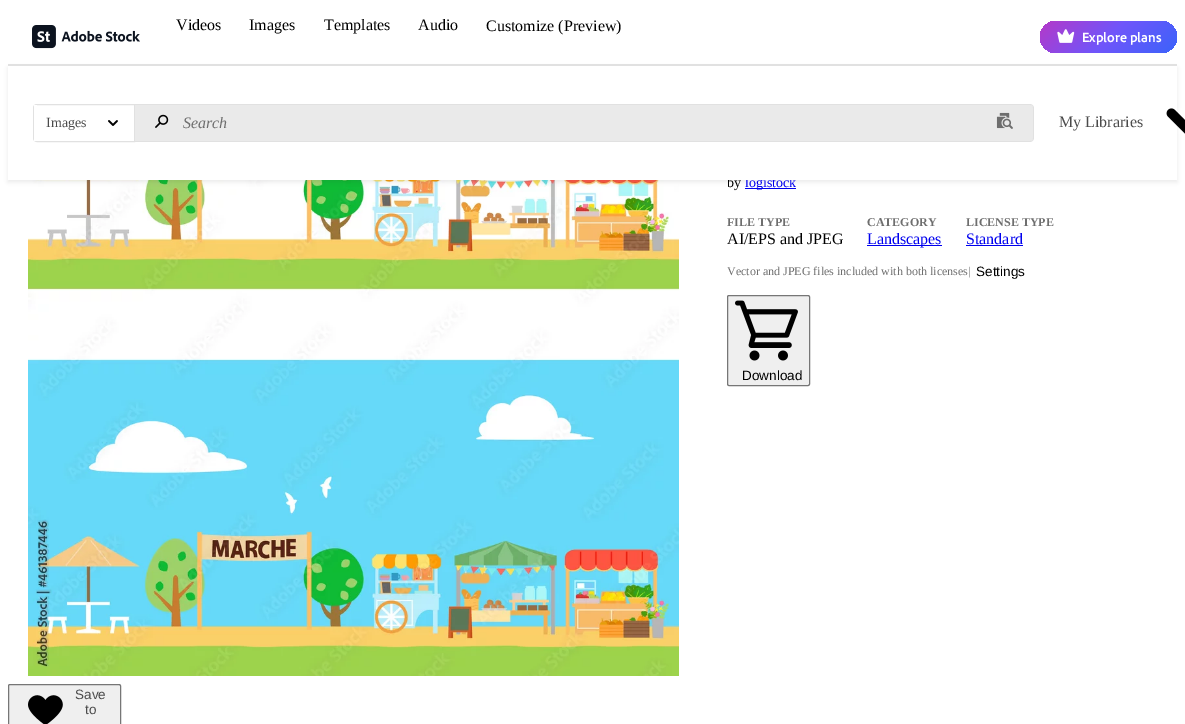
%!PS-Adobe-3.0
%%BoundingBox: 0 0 1185 724
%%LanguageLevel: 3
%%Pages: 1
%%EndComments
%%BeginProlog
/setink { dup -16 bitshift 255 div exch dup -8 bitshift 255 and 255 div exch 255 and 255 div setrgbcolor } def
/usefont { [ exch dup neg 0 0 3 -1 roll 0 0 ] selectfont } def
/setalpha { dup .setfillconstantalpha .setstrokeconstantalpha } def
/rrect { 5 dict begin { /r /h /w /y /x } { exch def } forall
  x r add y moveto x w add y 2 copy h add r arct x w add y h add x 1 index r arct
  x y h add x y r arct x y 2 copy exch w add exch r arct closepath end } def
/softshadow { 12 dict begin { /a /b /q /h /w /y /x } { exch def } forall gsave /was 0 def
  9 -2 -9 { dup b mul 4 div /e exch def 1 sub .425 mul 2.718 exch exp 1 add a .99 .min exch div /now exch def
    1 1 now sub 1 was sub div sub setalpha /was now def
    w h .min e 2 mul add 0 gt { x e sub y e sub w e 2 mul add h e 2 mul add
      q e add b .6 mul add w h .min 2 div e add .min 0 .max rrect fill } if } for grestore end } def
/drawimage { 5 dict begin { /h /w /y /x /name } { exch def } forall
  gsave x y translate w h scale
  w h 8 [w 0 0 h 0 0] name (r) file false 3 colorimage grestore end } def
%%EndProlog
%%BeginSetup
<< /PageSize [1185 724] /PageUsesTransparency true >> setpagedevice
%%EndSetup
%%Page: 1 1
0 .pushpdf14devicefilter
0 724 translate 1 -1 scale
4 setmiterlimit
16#FFFFFF setink
0 0 1185 724 rectfill
16#0000EE setink
745 188 51 1 rectfill
(img8.raw) 28 180 651 496 drawimage
16#343434 setink
8 68 1169 114 0 2 0.1 softshadow
16#E1E1E1 setink
8 64 1169 2 rectfill
(img1.raw) 32 25 108 24 drawimage
/LiberationSerif-Regular 16 usefont
16#000000 setink
[
    [(Videos) 176 30]
    [(Images) 249 30]
    [(Templates) 324 30]
    [(Audio) 418 30]
    [(Customize \(Preview\)) 486 31]
] { aload pop moveto show } forall
gsave 1040 21 137 32 16 rrect clip newpath
<< /ShadingType 2 /ColorSpace /DeviceRGB /Coords [1066 -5.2 1151 79] /Extend [true true] /Function << /FunctionType 3 /Domain [0 1] /Functions [<< /FunctionType 2 /Domain [0 1] /C0 [0.71 0.224 0.784] /C1 [0.443 0.333 0.98] /N 1 >> << /FunctionType 2 /Domain [0 1] /C0 [0.443 0.333 0.98] /C1 [0.231 0.388 0.984] /N 1 >>] /Bounds [0.5] /Encode [0 1 0 1] >> >> shfill grestore
(img2.raw) 1057 29 18 14 drawimage
/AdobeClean-Bold 14 usefont
16#FFFFFF setink
1082 42 moveto (Explore plans) show
/LiberationSerif-Regular 14 usefont
16#000000 setink
727 187 moveto (by) show
16#0000EE setink
745 187 moveto (logistock) show
16#FFFFFF setink
8 66 1169 114 rectfill
16#E1E1E1 setink
37 104.5 moveto 134.5 104.5 lineto 134.5 141.5 lineto 37 141.5 lineto 35 141.5 33.5 140 33.5 138 curveto 33.5 108 lineto 33.5 106 35 104.5 37 104.5 curveto closepath stroke
16#FFFFFF setink
34 105 3 36 rectfill
16#4B4B4B setink
46 127 moveto (Images) show
(img3.raw) 108 120 10 6 drawimage
16#EAEAEA setink
135 105 moveto 1030 105 lineto 1031.5 105 1033 106.5 1033 108 curveto 1033 138 lineto 1033 139.5 1031.5 141 1030 141 curveto 135 141 lineto closepath fill
16#E1E1E1 setink
135 104 moveto 1030 104 lineto 1032 104 1034 106 1034 108 curveto 1034 138 lineto 1034 140 1032 142 1030 142 curveto 135 142 lineto closepath 135 105 moveto 1030 105 lineto 1032 105 1033 106 1033 108 curveto 1033 138 lineto 1033 140 1032 141 1030 141 curveto 135 141 lineto closepath eofill
(img4.raw) 155 114 14 14 drawimage
/LiberationSerif-Italic 16 usefont
16#6E6E6E setink
183 128 moveto (Search) show
(img5.raw) 996 112 17 17 drawimage
/LiberationSerif-Regular 16 usefont
16#4B4B4B setink
1059 127 moveto (My Libraries) show
(img6.raw) 1166 108 19 26 drawimage
/LiberationSerif-Bold 12 usefont
16#6E6E6E setink
727 226 moveto (FILE TYPE) show
/LiberationSerif-Regular 16 usefont
16#000000 setink
727 244 moveto (AI/EPS and JPEG) show
/LiberationSerif-Bold 12 usefont
16#6E6E6E setink
867 226 moveto (CATEGORY) show
16#0000EE setink
867 245 75 1 rectfill
/LiberationSerif-Regular 16 usefont
867 244 moveto (Landscapes) show
/LiberationSerif-Bold 12 usefont
16#6E6E6E setink
966 226 moveto (LICENSE TYPE) show
/LiberationSerif-Regular 16 usefont
16#0000EE setink
966 244 moveto (Standard) show
966 245 57 1 rectfill
/LiberationSerif-Regular 12 usefont
16#6E6E6E setink
727 275 moveto (Vector and JPEG files included with both licenses|) show
/LiberationSans-Regular 13.5 usefont
16#000000 setink
976 276 moveto (Settings) show
16#EFEFEF setink
727.5 295.5 82 90 1.5 rrect gsave fill grestore
16#767676 setink
stroke
(img7.raw) 735 300 63 61 drawimage
16#000000 setink
742 380 moveto (Download) show
16#EFEFEF setink
8.5 684.5 112 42 1.5 rrect gsave fill grestore
16#767676 setink
stroke
(img9.raw) 28 695 35 29 drawimage
16#4B4B4B setink
75 699 moveto (Save) show
85 714 moveto (to) show
.poppdf14devicefilter showpage
%%EOF
